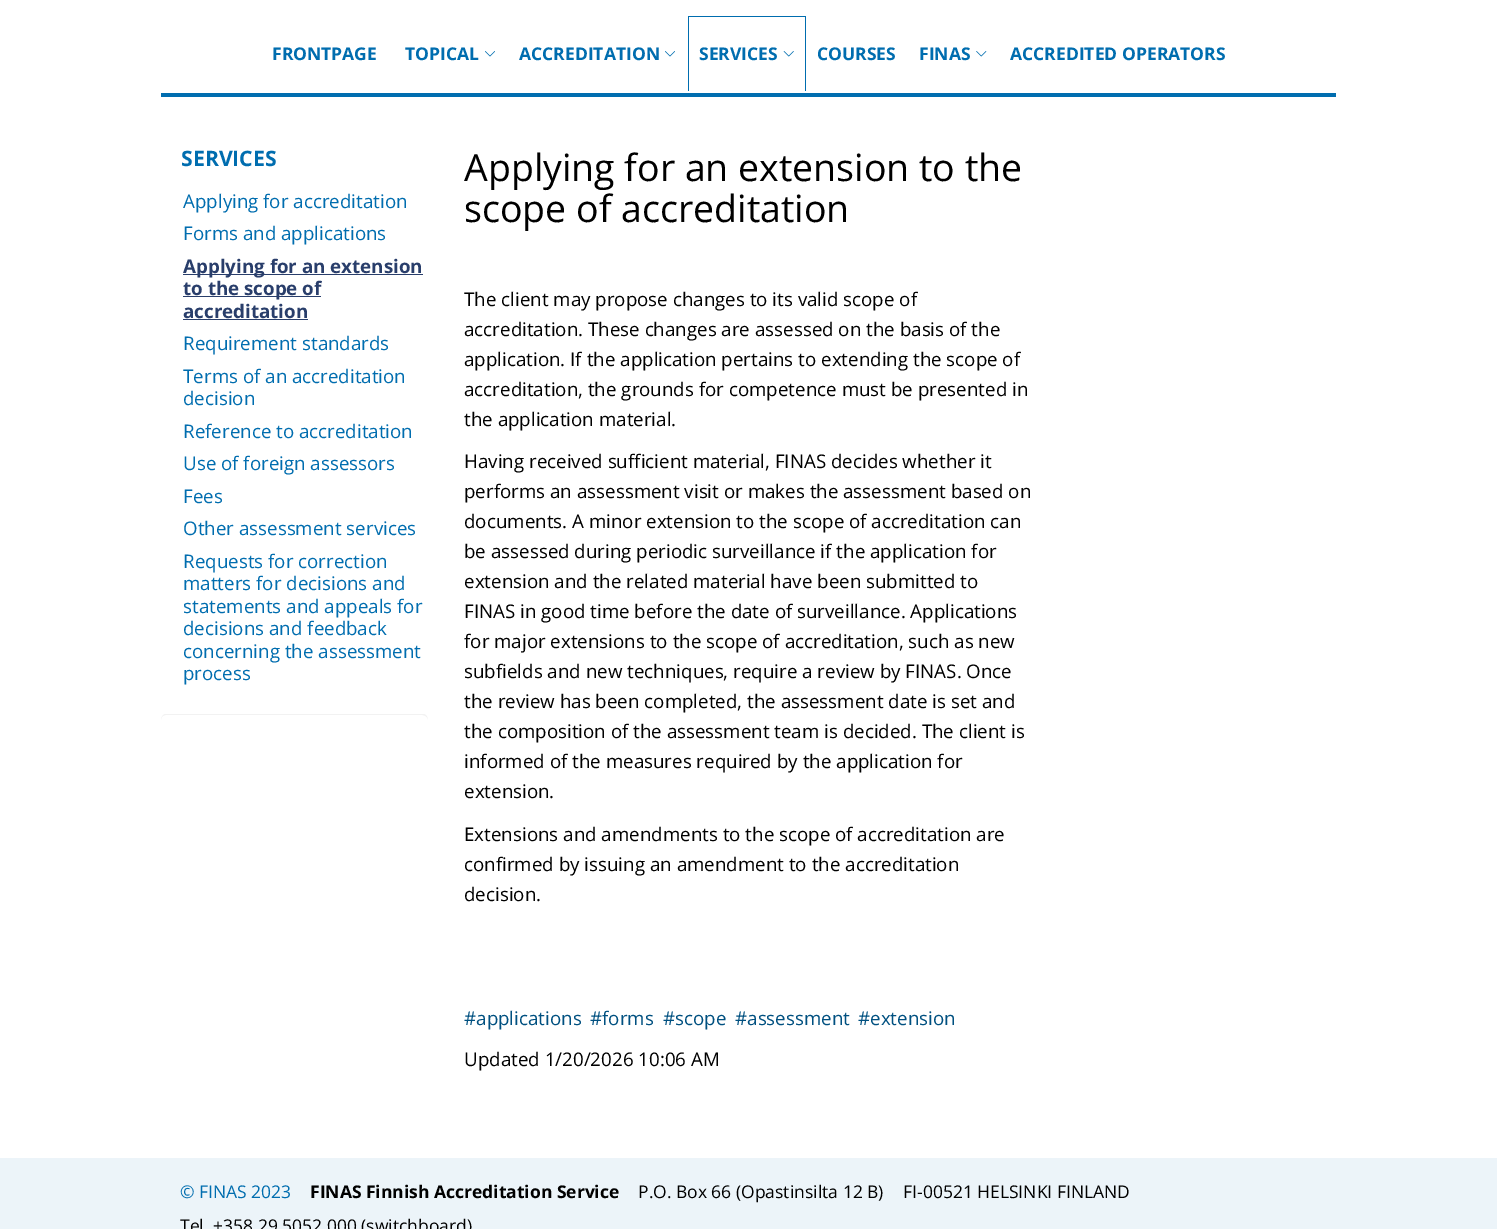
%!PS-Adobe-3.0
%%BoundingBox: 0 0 1497 1229
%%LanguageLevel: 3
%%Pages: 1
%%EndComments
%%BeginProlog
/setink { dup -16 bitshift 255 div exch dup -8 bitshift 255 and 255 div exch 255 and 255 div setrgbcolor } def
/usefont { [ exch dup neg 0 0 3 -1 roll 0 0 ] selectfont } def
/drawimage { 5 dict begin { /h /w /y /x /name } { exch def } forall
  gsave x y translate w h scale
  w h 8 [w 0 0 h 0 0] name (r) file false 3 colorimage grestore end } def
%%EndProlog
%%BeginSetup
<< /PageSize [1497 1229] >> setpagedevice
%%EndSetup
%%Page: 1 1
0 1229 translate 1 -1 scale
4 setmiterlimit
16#FFFFFF setink
0 0 1497 1229 rectfill
16#006DAF setink
161 93 1175 4 rectfill
/OpenSans-Bold 17.5 usefont
272 60 moveto (FRONTPAGE) show
405 60 moveto (TOPICAL) show
(img1.raw) 485 51 10 6 drawimage
519 60 moveto (ACCREDITATION) show
(img1.raw) 665 51 10 6 drawimage
[
    [688 16 118 1 16#006DAF]
    [805 16 1 75 16#006DAF]
    [688 16 1 75 16#006DAF]
] { aload pop setink rectfill } forall
699 60 moveto (SERVICES) show
(img2.raw) 783 51 11 6 drawimage
817 60 moveto (COURSES) show
919 60 moveto (FINAS) show
(img3.raw) 976 51 11 6 drawimage
1010 60 moveto (ACCREDITED OPERATORS) show
/OpenSans-Bold 21.25 usefont
181 166 moveto (SERVICES) show
/OpenSans-Regular 18.75 usefont
183 208 moveto (Applying for accreditation) show
183 240 moveto (Forms and applications) show
16#293E6B setink
183 274 240 1 rectfill
/OpenSans-Bold 18.75 usefont
183 273 moveto (Applying for an extension) show
183 296 138 1 rectfill
183 295 moveto (to the scope of) show
183 318 moveto (accreditation) show
183 319 125 1 rectfill
/OpenSans-Regular 18.75 usefont
16#006DAF setink
[
    [(Requirement standards) 183 350]
    [(Terms of an accreditation) 183 383]
    [(decision) 183 405]
    [(Reference to accreditation) 183 438]
    [(Use of foreign assessors) 183 470]
    [(Fees) 183 503]
    [(Other assessment services) 183 535]
    [(Requests for correction) 183 568]
    [(matters for decisions and) 183 590]
    [(statements and appeals for) 183 613]
    [(decisions and feedback) 183 635]
    [(concerning the assessment) 183 658]
    [(process) 183 680]
] { aload pop moveto show } forall
16#F2F2F2 setink
166 715 moveto 422 715 lineto 425 715 428 717 428 720 curveto 428 717 426 714 423 714 curveto 166 714 lineto 163 714 161 717 161 720 curveto 161 717 163 715 166 715 curveto closepath fill
/OpenSans-Regular 37.5 usefont
16#000000 setink
464 181 moveto (Applying for an extension to the) show
464 222 moveto (scope of accreditation) show
/OpenSans-Regular 18.75 usefont
[
    [(The client may propose changes to its valid scope of) 464 306]
    [(accreditation. These changes are assessed on the basis of the) 464 336]
    [(application. If the application pertains to extending the scope of) 464 366]
    [(accreditation, the grounds for competence must be presented in) 464 396]
    [(the application material.) 464 426]
    [(Having received sufficient material, FINAS decides whether it) 464 468]
    [(performs an assessment visit or makes the assessment based on) 464 498]
    [(documents. A minor extension to the scope of accreditation can) 464 528]
    [(be assessed during periodic surveillance if the application for) 464 558]
    [(extension and the related material have been submitted to) 464 588]
    [(FINAS in good time before the date of surveillance. Applications) 464 618]
    [(for major extensions to the scope of accreditation, such as new) 464 648]
    [(subfields and new techniques, require a review by FINAS. Once) 464 678]
    [(the review has been completed, the assessment date is set and) 464 708]
    [(the composition of the assessment team is decided. The client is) 464 738]
    [(informed of the measures required by the application for) 464 768]
    [(extension.) 464 798]
    [(Extensions and amendments to the scope of accreditation are) 464 841]
    [(confirmed by issuing an amendment to the accreditation) 464 871]
    [(decision.) 464 901]
] { aload pop moveto show } forall
16#005080 setink
[
    [(#applications) 464 1025]
    [(#forms) 590 1025]
    [(#scope) 663 1025]
    [(#assessment) 735 1025]
    [(#extension) 858 1025]
] { aload pop moveto show } forall
16#000000 setink
464 1066 moveto (Updated 1/20/2026 10:06 AM) show
16#ECF4F9 setink
0 1158 1497 71 rectfill
/OpenSans-Regular 17.5 usefont
16#006DAF setink
180 1198 moveto (© FINAS 2023) show
/OpenSans-Bold 17.5 usefont
16#000000 setink
310 1198 moveto (FINAS Finnish Accreditation Service) show
/OpenSans-Regular 17.5 usefont
[
    [(P.O. Box 66 \(Opastinsilta 12 B\)) 638 1198]
    [(FI-00521 HELSINKI FINLAND) 903 1198]
    [(Tel. +358 29 5052 000 \(switchboard\)) 180 1232]
] { aload pop moveto show } forall
showpage
%%EOF
